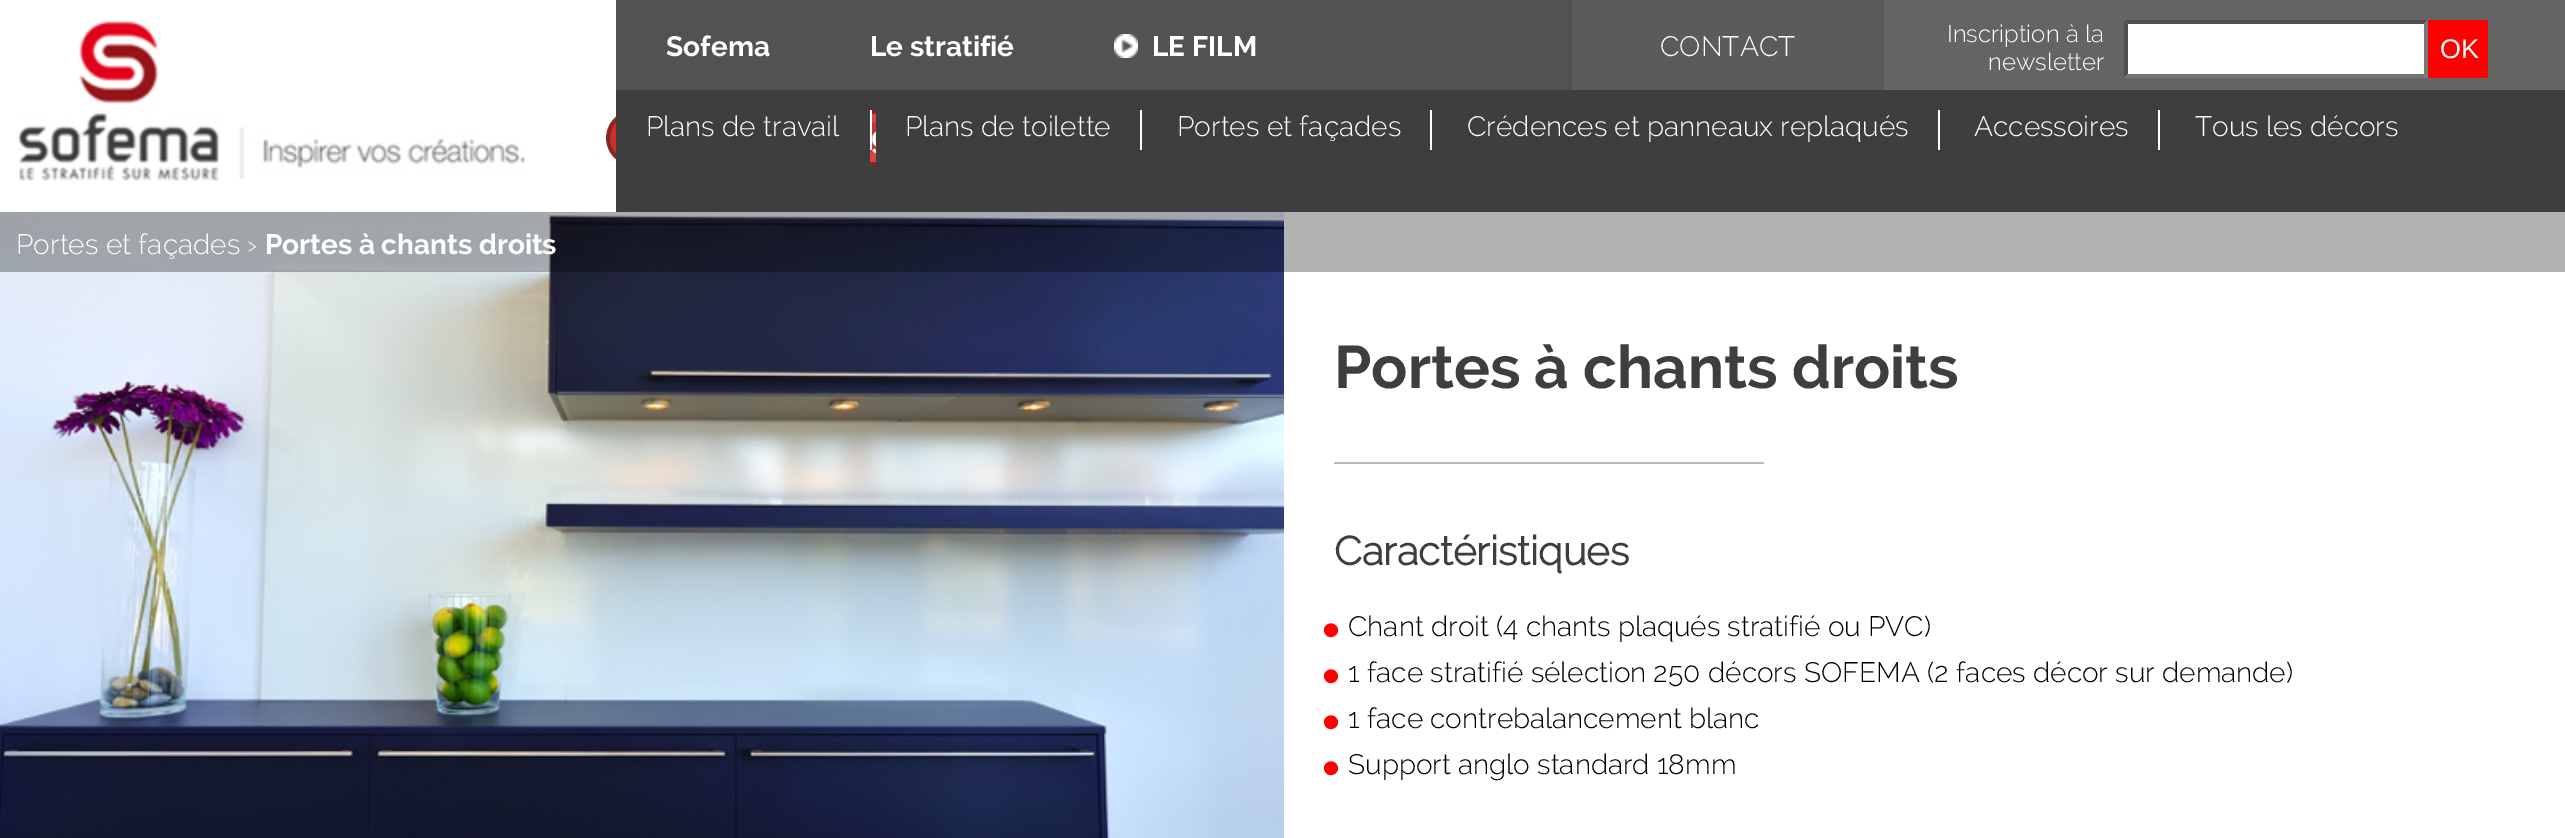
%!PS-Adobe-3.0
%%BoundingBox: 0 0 2565 838
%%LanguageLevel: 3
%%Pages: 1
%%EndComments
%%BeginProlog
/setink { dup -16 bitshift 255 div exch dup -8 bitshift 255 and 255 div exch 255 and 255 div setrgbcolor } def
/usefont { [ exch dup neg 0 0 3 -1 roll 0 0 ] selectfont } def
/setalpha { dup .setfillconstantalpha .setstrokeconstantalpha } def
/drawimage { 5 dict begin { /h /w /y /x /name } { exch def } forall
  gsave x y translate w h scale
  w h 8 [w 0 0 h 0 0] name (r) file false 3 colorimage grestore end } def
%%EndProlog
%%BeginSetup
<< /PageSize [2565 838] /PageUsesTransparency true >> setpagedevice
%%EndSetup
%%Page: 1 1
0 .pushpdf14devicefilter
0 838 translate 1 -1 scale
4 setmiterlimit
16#FFFFFF setink
0 0 2565 838 rectfill
(img1.raw) 17 21 508 160 drawimage
16#3E3E40 setink
616 90 1949 122 rectfill
16#525253 setink
616 0 956 90 rectfill
/Raleway-Bold 28 usefont
16#FFFFFF setink
666 56 moveto (Sofema) show
870 56 moveto (Le stratifié) show
(img2.raw) 1114 34 24 24 drawimage
1152 56 moveto (LE FILM) show
(img3.raw) 606 110 270 56 drawimage
16#5B5B5C setink
1572 0 312 90 rectfill
/Raleway-Light 28 usefont
16#FFFFFF setink
1660 56 moveto (CONTACT) show
16#646465 setink
1884 0 681 90 rectfill
/Raleway-Light 24 usefont
16#FFFFFF setink
1947 42 moveto (Inscription à la) show
1988 70 moveto (newsletter) show
2124 20 304 58 rectfill
16#4F4F4F setink
2124 20 moveto 2428 20 lineto 2424 24 lineto 2128 24 lineto closepath fill
16#767676 setink
2428 20 moveto 2428 78 lineto 2424 74 lineto 2424 24 lineto closepath fill
2428 78 moveto 2124 78 lineto 2128 74 lineto 2424 74 lineto closepath fill
16#4F4F4F setink
2124 78 moveto 2124 20 lineto 2128 24 lineto 2128 74 lineto closepath fill
16#FF0000 setink
2428 20 60 58 rectfill
/LiberationSans-Regular 27 usefont
16#FFFFFF setink
2440 58 moveto (OK) show
16#3E3E40 setink
616 110 254 56 rectfill
/Raleway-Light 28 usefont
16#FFFFFF setink
646 136 moveto (Plans de travail) show
870 110 2 40 rectfill
905 136 moveto (Plans de toilette) show
1140 110 2 40 rectfill
1177 136 moveto (Portes et façades) show
1430 110 2 40 rectfill
1467 136 moveto (Crédences et panneaux replaqués) show
1938 110 2 40 rectfill
1974 136 moveto (Accessoires) show
2158 110 2 40 rectfill
2195 136 moveto (Tous les décors) show
(img4.raw) 0 212 1284 626 drawimage
0.3 setalpha
16#000000 setink
0 212 2565 60 rectfill
1 setalpha
16#FFFFFF setink
16 254 moveto (Portes et façades ›) show
/Raleway-Bold 28 usefont
265 254 moveto (Portes à chants droits) show
/Raleway-Bold 60 usefont
16#3E3E40 setink
1334 388 moveto (Portes à chants droits) show
16#BABABA setink
1334 462 430 2 rectfill
/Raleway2-Bold 40 usefont
16#3E3E40 setink
1334 565 moveto (Caractéristiques) show
16#FF0000 setink
1337 627 moveto 1341.5 634.5 1329.5 641.5 1325 633.5 curveto 1320.5 626 1332 619 1337 627 curveto closepath fill
/Raleway-Light 28 usefont
16#000000 setink
1348 636 moveto (Chant droit \(4 chants plaqués stratifié ou PVC\)) show
16#FF0000 setink
1337 673 moveto 1341.5 680.5 1329.5 687.5 1325 679.5 curveto 1320.5 672 1332 665 1337 673 curveto closepath fill
16#000000 setink
1348 682 moveto (1 face stratifié sélection 250 décors SOFEMA \(2 faces décor sur demande\)) show
16#FF0000 setink
1337 719 moveto 1341.5 726.5 1329.5 733.5 1325 725.5 curveto 1320.5 718 1332 711 1337 719 curveto closepath fill
16#000000 setink
1348 728 moveto (1 face contrebalancement blanc) show
16#FF0000 setink
1337 765 moveto 1341.5 772.5 1329.5 779.5 1325 771.5 curveto 1320.5 764 1332 757 1337 765 curveto closepath fill
16#000000 setink
1348 774 moveto (Support anglo standard 18mm) show
.poppdf14devicefilter showpage
%%EOF
